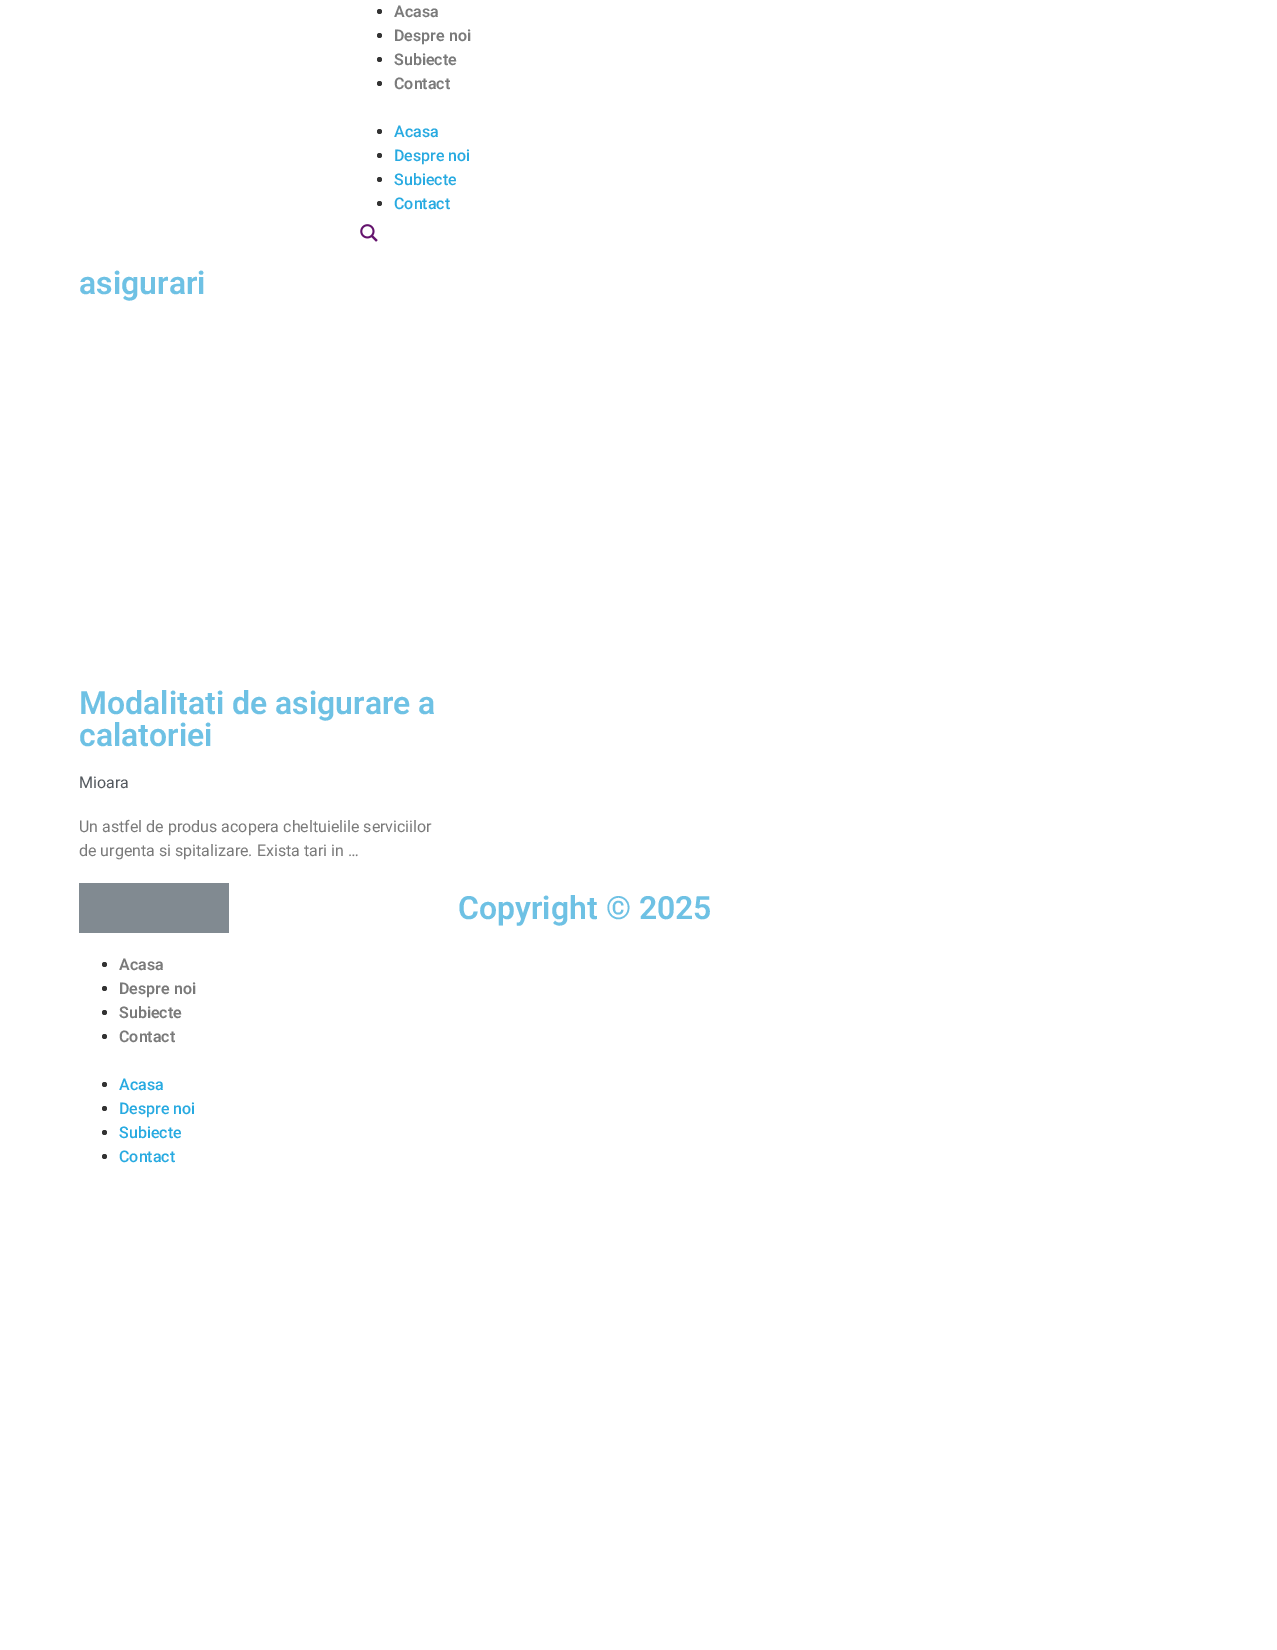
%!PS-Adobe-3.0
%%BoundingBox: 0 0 1277 1650
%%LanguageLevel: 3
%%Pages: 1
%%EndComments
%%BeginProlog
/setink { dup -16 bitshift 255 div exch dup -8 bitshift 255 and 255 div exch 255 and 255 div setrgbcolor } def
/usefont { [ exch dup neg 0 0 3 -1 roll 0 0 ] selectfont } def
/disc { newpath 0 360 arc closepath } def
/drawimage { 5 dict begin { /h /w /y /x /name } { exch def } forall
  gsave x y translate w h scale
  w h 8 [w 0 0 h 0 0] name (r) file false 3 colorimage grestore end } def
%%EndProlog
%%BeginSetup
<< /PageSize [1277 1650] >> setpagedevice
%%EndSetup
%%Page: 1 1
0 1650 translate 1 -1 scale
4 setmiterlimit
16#FFFFFF setink
0 0 1277 1650 rectfill
16#333333 setink
379.5 11.5 2.5 disc fill
/Roboto-SemiBold 16 usefont
16#7A7A7A setink
394 17 moveto (Acasa) show
16#333333 setink
379.5 35.5 2.5 disc fill
16#7A7A7A setink
394 41 moveto (Despre noi) show
16#333333 setink
379.5 59.5 2.5 disc fill
16#7A7A7A setink
394 65 moveto (Subiecte) show
16#333333 setink
379.5 83.5 2.5 disc fill
16#7A7A7A setink
394 89 moveto (Contact) show
16#333333 setink
379.5 131.5 2.5 disc fill
/Roboto-Medium 16 usefont
16#27AAE1 setink
394 137 moveto (Acasa) show
16#333333 setink
379.5 155.5 2.5 disc fill
16#27AAE1 setink
394 161 moveto (Despre noi) show
16#333333 setink
379.5 179.5 2.5 disc fill
16#27AAE1 setink
394 185 moveto (Subiecte) show
16#333333 setink
379.5 203.5 2.5 disc fill
16#27AAE1 setink
394 209 moveto (Contact) show
(img1.raw) 360 224 18 18 drawimage
/Roboto-SemiBold 32 usefont
16#6EC1E4 setink
[
    [(asigurari) 79 294]
    [(Modalitati de asigurare a) 79 714]
    [(calatoriei) 79 746]
] { aload pop moveto show } forall
/Roboto-Regular 16 usefont
16#54595F setink
79 788 moveto (Mioara) show
16#7A7A7A setink
79 832 moveto (Un astfel de produs acopera cheltuielile serviciilor) show
79 856 moveto (de urgenta si spitalizare. Exista tari in …) show
16#818A91 setink
79 883 150 50 rectfill
/Roboto-SemiBold 32 usefont
16#6EC1E4 setink
458 919 moveto (Copyright © 2025) show
16#333333 setink
104.5 964.5 2.5 disc fill
/Roboto-SemiBold 16 usefont
16#7A7A7A setink
119 970 moveto (Acasa) show
16#333333 setink
104.5 988.5 2.5 disc fill
16#7A7A7A setink
119 994 moveto (Despre noi) show
16#333333 setink
104.5 1012.5 2.5 disc fill
16#7A7A7A setink
119 1018 moveto (Subiecte) show
16#333333 setink
104.5 1036.5 2.5 disc fill
16#7A7A7A setink
119 1042 moveto (Contact) show
16#333333 setink
104.5 1084.5 2.5 disc fill
/Roboto-Medium 16 usefont
16#27AAE1 setink
119 1090 moveto (Acasa) show
16#333333 setink
104.5 1108.5 2.5 disc fill
16#27AAE1 setink
119 1114 moveto (Despre noi) show
16#333333 setink
104.5 1132.5 2.5 disc fill
16#27AAE1 setink
119 1138 moveto (Subiecte) show
16#333333 setink
104.5 1156.5 2.5 disc fill
16#27AAE1 setink
119 1162 moveto (Contact) show
showpage
%%EOF
